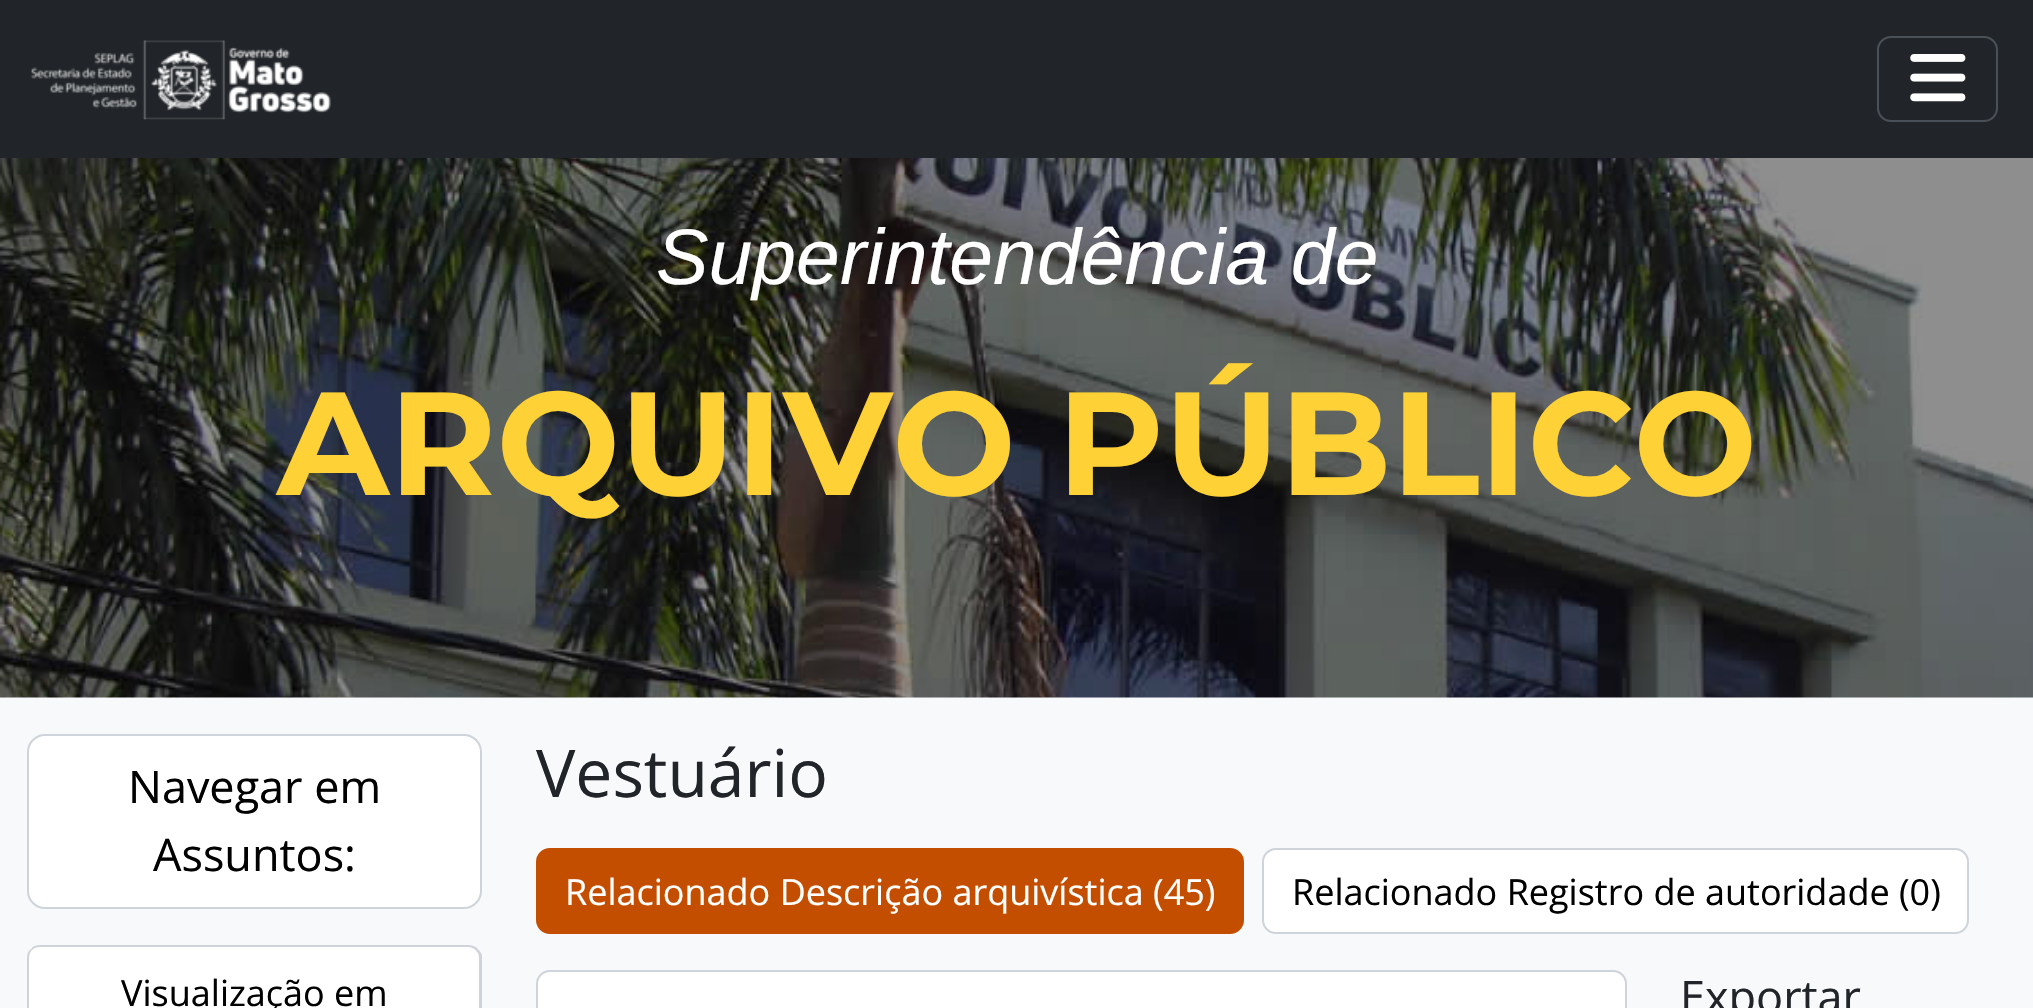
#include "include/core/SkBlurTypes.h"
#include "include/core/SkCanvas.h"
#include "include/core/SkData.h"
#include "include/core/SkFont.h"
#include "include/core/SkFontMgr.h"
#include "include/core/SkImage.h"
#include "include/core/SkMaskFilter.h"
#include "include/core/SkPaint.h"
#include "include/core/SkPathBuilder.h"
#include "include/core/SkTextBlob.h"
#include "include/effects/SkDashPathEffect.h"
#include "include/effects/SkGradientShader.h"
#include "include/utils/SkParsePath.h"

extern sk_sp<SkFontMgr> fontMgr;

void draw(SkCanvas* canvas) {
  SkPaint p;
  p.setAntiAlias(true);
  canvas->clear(SkColorSetRGB(248, 249, 250));
  p.setColor(SkColorSetRGB(33, 37, 41));
  canvas->drawRect(SkRect::MakeLTRB(0, 0, 2033, 158), p);
  canvas->drawImageRect(SkImages::DeferredFromEncodedData(SkData::MakeFromFileName("images/1.png")), SkRect::MakeLTRB(30, 40, 331, 120), SkSamplingOptions());
  p.setStyle(SkPaint::kStroke_Style);
  p.setStrokeWidth(2);
  p.setColor(SkColorSetRGB(73, 80, 87));
  canvas->drawRoundRect(SkRect::MakeLTRB(1878, 37, 1997, 121), 13, 13, p);
  canvas->drawImageRect(SkImages::DeferredFromEncodedData(SkData::MakeFromFileName("images/2.png")), SkRect::MakeLTRB(1910, 54, 1966, 102), SkSamplingOptions());
  canvas->drawImageRect(SkImages::DeferredFromEncodedData(SkData::MakeFromFileName("images/3.png")), SkRect::MakeLTRB(0, 158, 2033, 698), SkSamplingOptions());
  p.setStyle(SkPaint::kFill_Style);
  p.setColor(SK_ColorWHITE);
  canvas->drawRoundRect(SkRect::MakeLTRB(28, 735, 481, 908), 17, 17, p);
  p.setStyle(SkPaint::kStroke_Style);
  p.setColor(SkColorSetRGB(206, 212, 218));
  canvas->drawRoundRect(SkRect::MakeLTRB(28, 735, 481, 908), 17, 17, p);
  p.setStyle(SkPaint::kFill_Style);
  p.setColor(SK_ColorWHITE);
  canvas->drawPath(SkPathBuilder().moveTo(41, 945).lineTo(468, 945).cubicTo(475.5f, 945, 482, 951.5f, 482, 959).lineTo(482, 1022).lineTo(27, 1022).lineTo(27, 959).cubicTo(27, 951.5f, 33.5f, 945, 41, 945).close().detach(), p);
  p.setColor(SkColorSetRGB(206, 212, 218));
  canvas->drawPath(SkPathBuilder().moveTo(40, 945).cubicTo(36, 945, 33, 946, 31, 949).lineTo(32, 950).cubicTo(34, 948, 37, 947, 40, 947).lineTo(468, 947).cubicTo(471, 947, 474, 948, 476, 951).lineTo(478, 949).cubicTo(475, 946, 472, 945, 468, 945).close().detach(), p);
  canvas->drawPath(SkPathBuilder().moveTo(478, 949).cubicTo(479, 950, 481, 953, 482, 955).lineTo(482, 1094).lineTo(479, 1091).lineTo(479, 958).cubicTo(479, 955, 478, 952, 476, 951).close().detach(), p);
  canvas->drawPath(SkPathBuilder().moveTo(27, 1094).lineTo(30, 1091).lineTo(29, 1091).lineTo(29, 958).cubicTo(29, 955, 30, 952, 32, 950).lineTo(31, 949).cubicTo(28, 951, 27, 954, 27, 958).close().detach(), p);
  p.setColor(SkColorSetRGB(196, 78, 0));
  canvas->drawRoundRect(SkRect::MakeLTRB(537, 849, 1243, 933), 13, 13, p);
  p.setStyle(SkPaint::kStroke_Style);
  canvas->drawRoundRect(SkRect::MakeLTRB(537, 849, 1243, 933), 13, 13, p);
  p.setStyle(SkPaint::kFill_Style);
  p.setColor(SK_ColorWHITE);
  canvas->drawRoundRect(SkRect::MakeLTRB(1263, 849, 1968, 933), 13, 13, p);
  p.setStyle(SkPaint::kStroke_Style);
  p.setColor(SkColorSetRGB(206, 212, 218));
  canvas->drawRoundRect(SkRect::MakeLTRB(1263, 849, 1968, 933), 13, 13, p);
  p.setStyle(SkPaint::kFill_Style);
  p.setColor(SK_ColorWHITE);
  canvas->drawRoundRect(SkRect::MakeLTRB(537, 971, 1626, 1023), 13, 13, p);
  p.setStyle(SkPaint::kStroke_Style);
  p.setColor(SkColorSetRGB(206, 212, 218));
  canvas->drawRoundRect(SkRect::MakeLTRB(537, 971, 1626, 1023), 13, 13, p);
  SkFont font1(fontMgr->matchFamilyStyle("Liberation Sans", SkFontStyle::Italic()), 78.75f);
  font1.setSubpixel(true);
  p.setStyle(SkPaint::kFill_Style);
  p.setColor(SK_ColorWHITE);
  canvas->drawString("Superintendência de", 656, 284, font1, p);
  SkFont font2(fontMgr->matchFamilyStyle("Montserrat", SkFontStyle::Bold()), 146.25f);
  font2.setSubpixel(true);
  p.setColor(SkColorSetRGB(254, 209, 54));
  canvas->drawString("ARQUIVO PÚBLICO", 277, 495, font2, p);
  SkFont font3(fontMgr->matchFamilyStyle("Open Sans", SkFontStyle::Normal()), 45);
  font3.setSubpixel(true);
  p.setColor(SK_ColorBLACK);
  canvas->drawString("Navegar em", 128, 803, font3, p);
  canvas->drawString("Assuntos:", 153, 871, font3, p);
  SkFont font4(fontMgr->matchFamilyStyle("Open Sans", SkFontStyle::Normal()), 36);
  font4.setSubpixel(true);
  canvas->drawString("Visualização em", 121, 1006, font4, p);
  SkFont font5(fontMgr->matchFamilyStyle("Open Sans", SkFontStyle::Normal()), 66);
  font5.setSubpixel(true);
  p.setColor(SkColorSetRGB(33, 37, 41));
  canvas->drawString("Vestuário", 536, 797, font5, p);
  p.setColor(SK_ColorWHITE);
  canvas->drawString("Relacionado Descrição arquivística (45)", 565, 905, font4, p);
  p.setColor(SK_ColorBLACK);
  canvas->drawString("Relacionado Registro de autoridade (0)", 1292, 905, font4, p);
  p.setColor(SkColorSetRGB(33, 37, 41));
  canvas->drawString("Exportar", 1680, 1013, font3, p);
}
